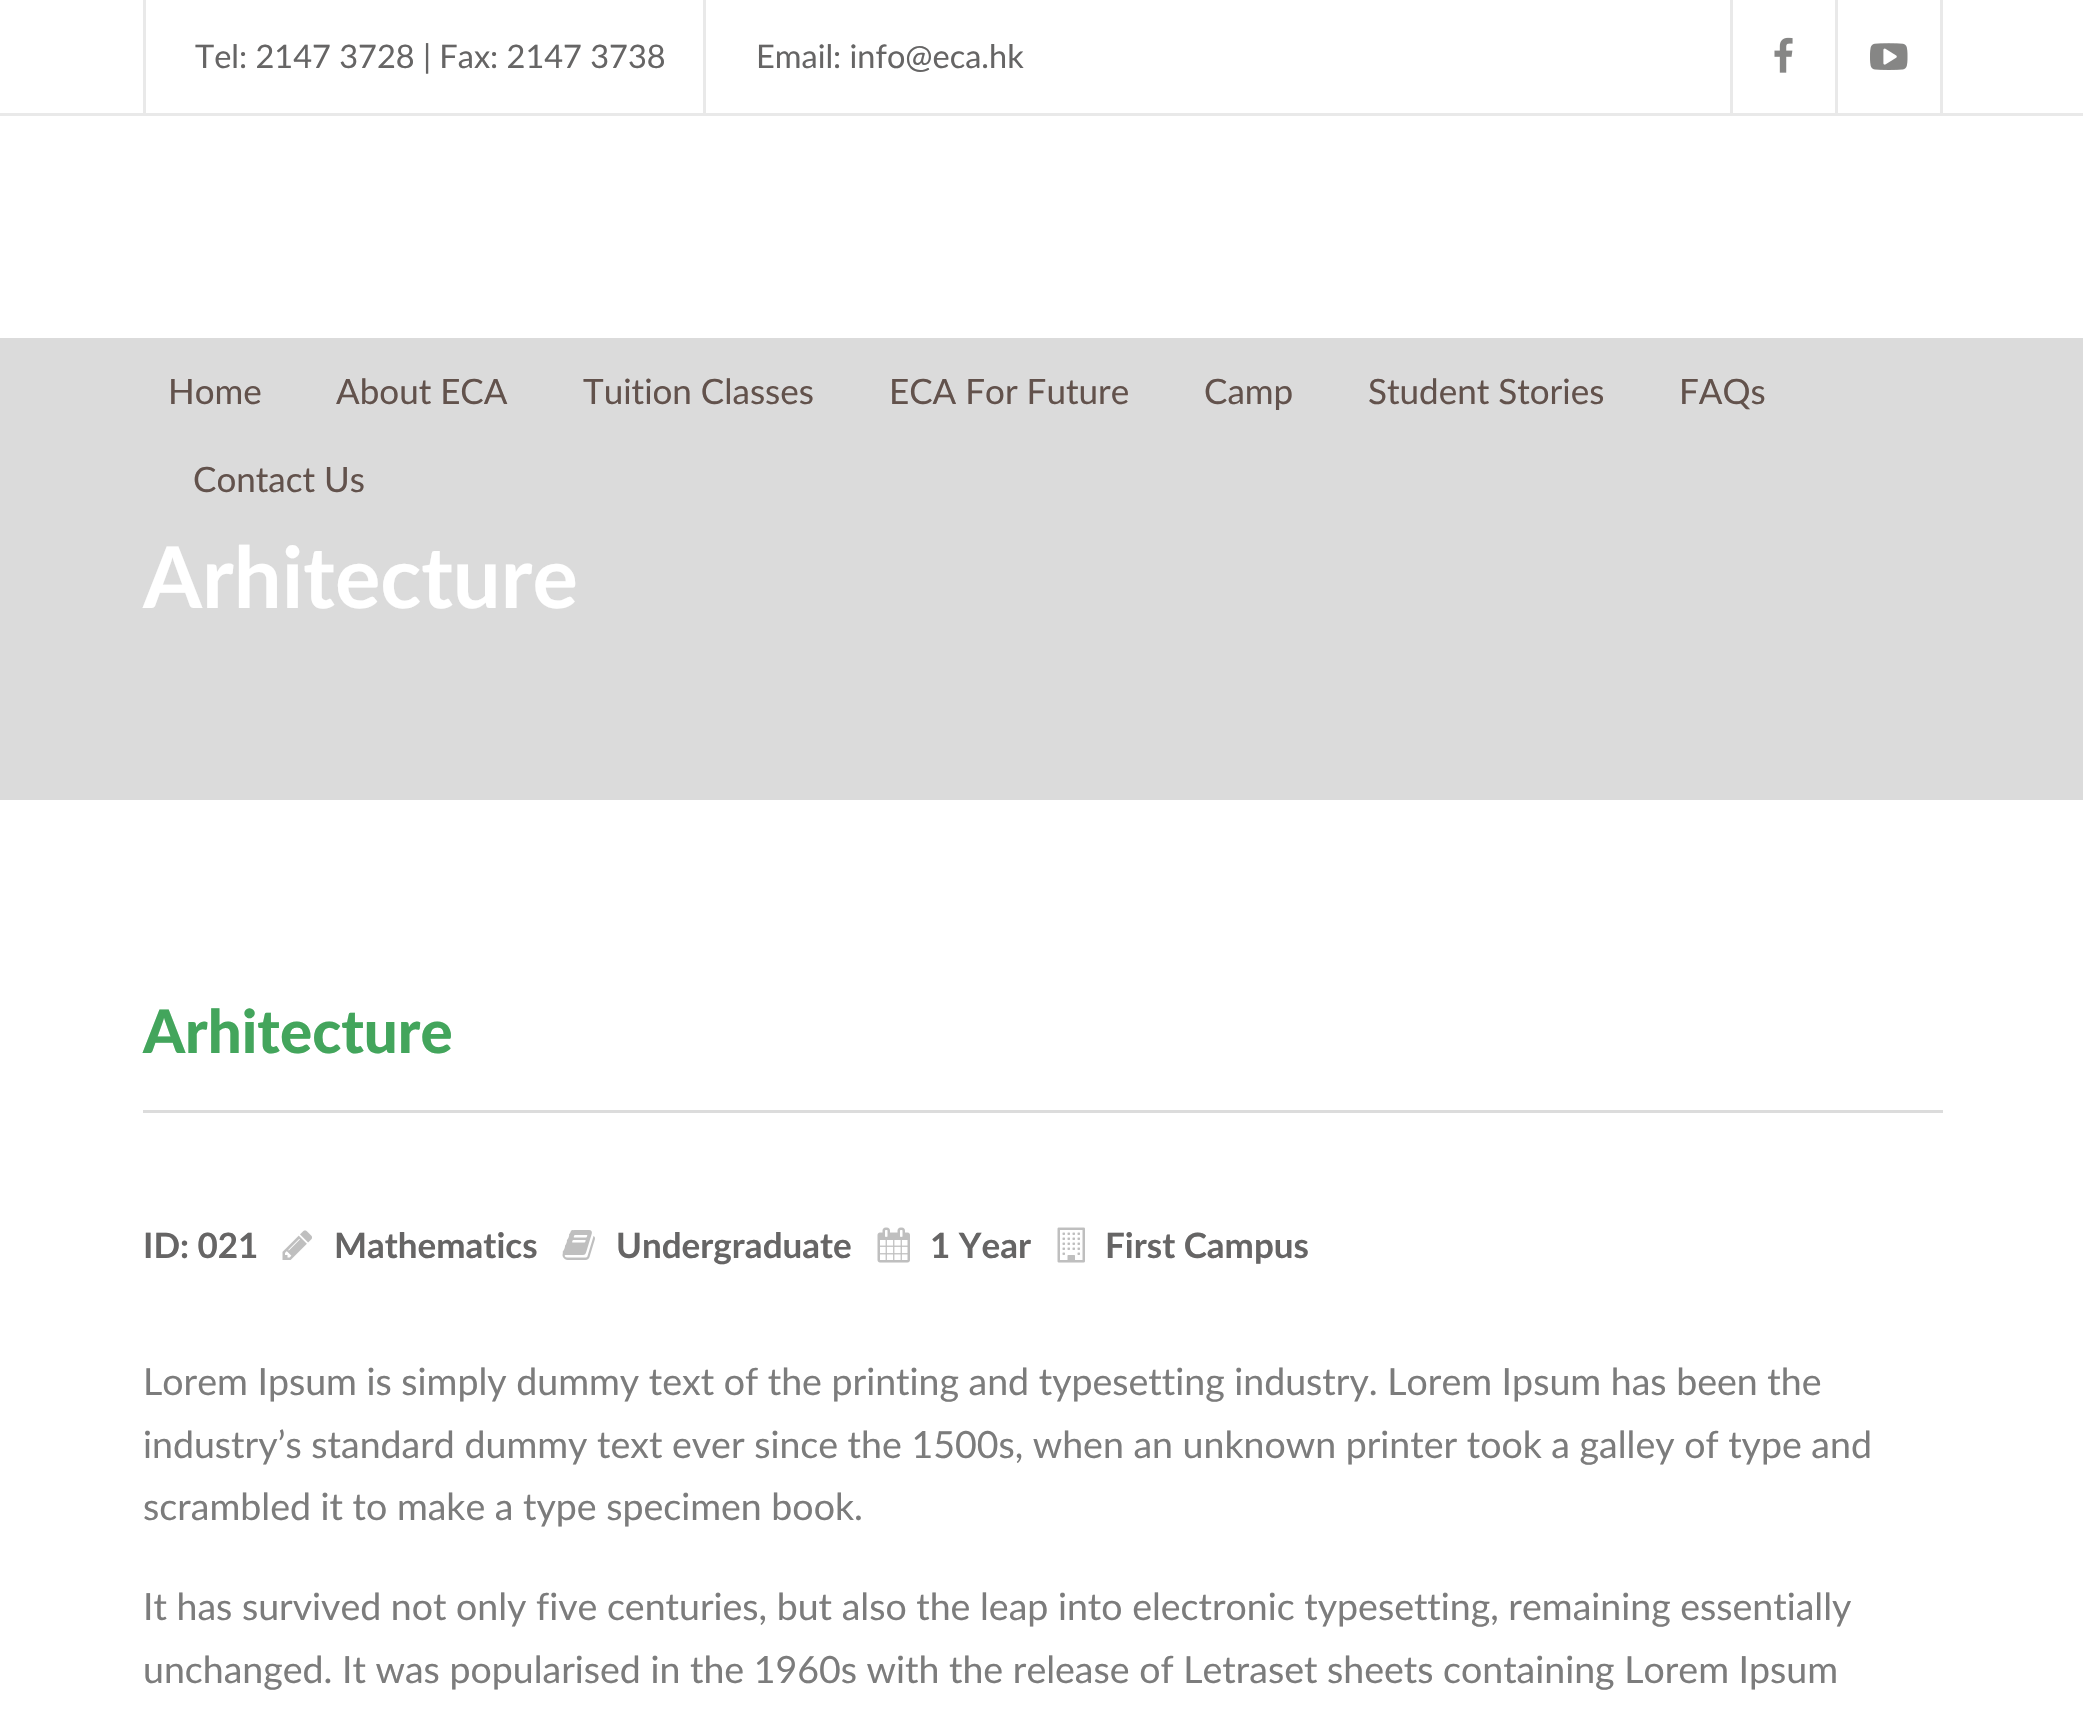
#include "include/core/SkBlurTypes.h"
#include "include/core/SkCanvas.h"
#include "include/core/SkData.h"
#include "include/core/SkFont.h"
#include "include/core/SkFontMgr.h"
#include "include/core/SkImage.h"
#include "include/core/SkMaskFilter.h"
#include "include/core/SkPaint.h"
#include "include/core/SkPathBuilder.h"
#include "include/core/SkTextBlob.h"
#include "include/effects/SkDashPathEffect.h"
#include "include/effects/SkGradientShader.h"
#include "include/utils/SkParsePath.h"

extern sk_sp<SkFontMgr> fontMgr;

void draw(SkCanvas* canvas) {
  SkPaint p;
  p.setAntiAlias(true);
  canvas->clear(SK_ColorWHITE);
  p.setColor(SkColorSetRGB(233, 233, 233));
  canvas->drawRect(SkRect::MakeLTRB(0, 113, 2083, 116), p);
  canvas->drawRect(SkRect::MakeLTRB(143, 0, 146, 113), p);
  canvas->drawRect(SkRect::MakeLTRB(703, 0, 706, 113), p);
  canvas->drawRect(SkRect::MakeLTRB(1730, 0, 1733, 113), p);
  canvas->drawRect(SkRect::MakeLTRB(1835, 0, 1838, 113), p);
  canvas->drawImageRect(SkImages::DeferredFromEncodedData(SkData::MakeFromFileName("images/1.png")), SkRect::MakeLTRB(1774, 37, 1793, 73), SkSamplingOptions());
  canvas->drawRect(SkRect::MakeLTRB(1940, 0, 1943, 113), p);
  canvas->drawImageRect(SkImages::DeferredFromEncodedData(SkData::MakeFromFileName("images/2.png")), SkRect::MakeLTRB(1870, 43, 1908, 70), SkSamplingOptions());
  p.setColor(SkColorSetRGB(219, 219, 219));
  canvas->drawRect(SkRect::MakeLTRB(0, 338, 2083, 800), p);
  p.setColor(SkColorSetRGB(220, 220, 220));
  canvas->drawRect(SkRect::MakeLTRB(143, 1110, 1943, 1113), p);
  canvas->drawImageRect(SkImages::DeferredFromEncodedData(SkData::MakeFromFileName("images/3.png")), SkRect::MakeLTRB(282, 1230, 312, 1260), SkSamplingOptions());
  canvas->drawImageRect(SkImages::DeferredFromEncodedData(SkData::MakeFromFileName("images/4.png")), SkRect::MakeLTRB(562, 1230, 595, 1260), SkSamplingOptions());
  canvas->drawImageRect(SkImages::DeferredFromEncodedData(SkData::MakeFromFileName("images/5.png")), SkRect::MakeLTRB(877, 1227, 910, 1263), SkSamplingOptions());
  canvas->drawImageRect(SkImages::DeferredFromEncodedData(SkData::MakeFromFileName("images/6.png")), SkRect::MakeLTRB(1057, 1227, 1085, 1263), SkSamplingOptions());
  SkFont font1(fontMgr->matchFamilyStyle("Lato", SkFontStyle::Normal()), 32.5f);
  font1.setSubpixel(true);
  p.setColor(SkColorSetRGB(102, 101, 101));
  canvas->drawString("Tel: 2147 3728 | Fax: 2147 3738", 195, 68, font1, p);
  canvas->drawString("Email: info@eca.hk", 756, 68, font1, p);
  SkFont font2(fontMgr->matchFamilyStyle("Lato", SkFontStyle::Normal()), 35);
  font2.setSubpixel(true);
  p.setColor(SkColorSetRGB(98, 82, 76));
  canvas->drawString("Home", 168, 404, font2, p);
  canvas->drawString("About ECA", 336, 404, font2, p);
  canvas->drawString("Tuition Classes", 583, 404, font2, p);
  canvas->drawString("ECA For Future", 889, 404, font2, p);
  canvas->drawString("Camp", 1204, 404, font2, p);
  canvas->drawString("Student Stories", 1368, 404, font2, p);
  canvas->drawString("FAQs", 1679, 404, font2, p);
  canvas->drawString("Contact Us", 193, 492, font2, p);
  SkFont font3(fontMgr->matchFamilyStyle("Lato", SkFontStyle::Bold()), 85);
  font3.setSubpixel(true);
  p.setColor(SK_ColorWHITE);
  canvas->drawString("Arhitecture", 143, 608, font3, p);
  SkFont font4(fontMgr->matchFamilyStyle("Lato", SkFontStyle(900, SkFontStyle::kNormal_Width, SkFontStyle::kUpright_Slant)), 60);
  font4.setSubpixel(true);
  p.setColor(SkColorSetRGB(67, 165, 92));
  canvas->drawString("Arhitecture", 143, 1053, font4, p);
  SkFont font5(fontMgr->matchFamilyStyle("Lato", SkFontStyle::Bold()), 35);
  font5.setSubpixel(true);
  p.setColor(SkColorSetRGB(102, 101, 101));
  canvas->drawString("ID: 021", 143, 1258, font5, p);
  canvas->drawString("Mathematics", 334, 1258, font5, p);
  canvas->drawString("Undergraduate", 616, 1258, font5, p);
  canvas->drawString("1 Year", 930, 1258, font5, p);
  canvas->drawString("First Campus", 1105, 1258, font5, p);
  SkFont font6(fontMgr->matchFamilyStyle("Lato", SkFontStyle::Normal()), 37.5f);
  font6.setSubpixel(true);
  p.setColor(SkColorSetRGB(124, 124, 124));
  canvas->drawString("Lorem Ipsum is simply dummy text of the printing and typesetting industry. Lorem Ipsum has been the", 143, 1395, font6, p);
  canvas->drawString("industry’s standard dummy text ever since the 1500s, when an unknown printer took a galley of type and", 143, 1458, font6, p);
  canvas->drawString("scrambled it to make a type specimen book.", 143, 1520, font6, p);
  canvas->drawString("It has survived not only five centuries, but also the leap into electronic typesetting, remaining essentially", 143, 1620, font6, p);
  canvas->drawString("unchanged. It was popularised in the 1960s with the release of Letraset sheets containing Lorem Ipsum", 143, 1683, font6, p);
}
